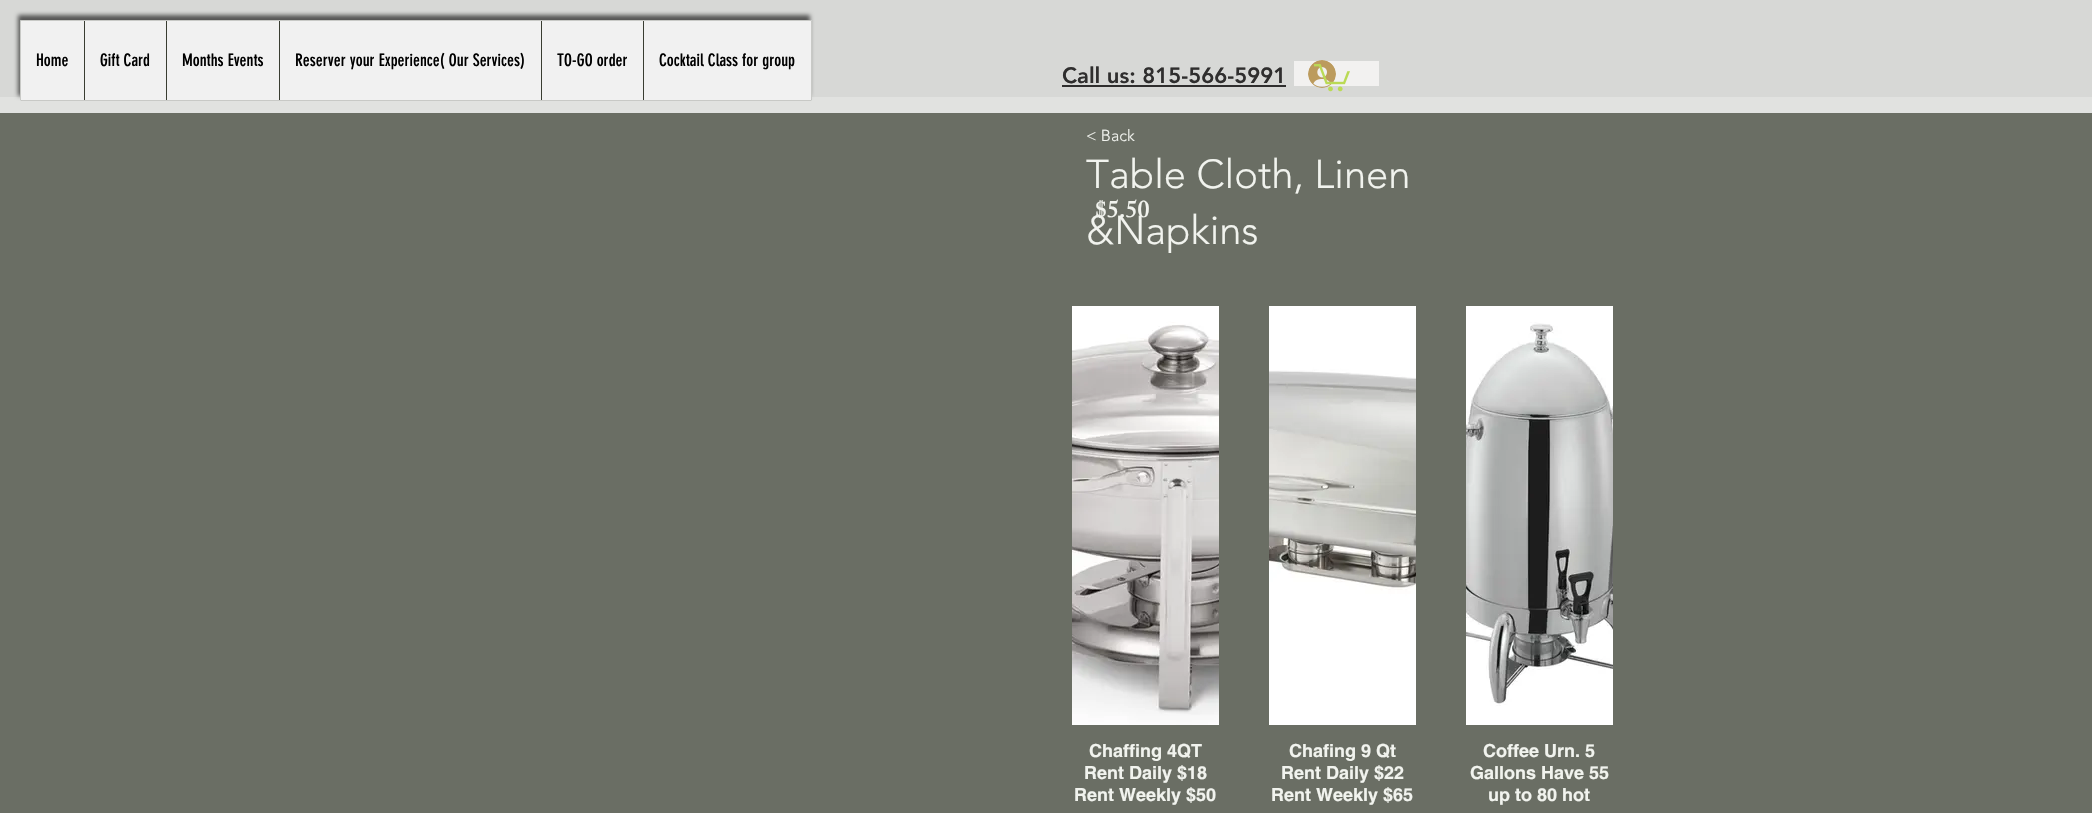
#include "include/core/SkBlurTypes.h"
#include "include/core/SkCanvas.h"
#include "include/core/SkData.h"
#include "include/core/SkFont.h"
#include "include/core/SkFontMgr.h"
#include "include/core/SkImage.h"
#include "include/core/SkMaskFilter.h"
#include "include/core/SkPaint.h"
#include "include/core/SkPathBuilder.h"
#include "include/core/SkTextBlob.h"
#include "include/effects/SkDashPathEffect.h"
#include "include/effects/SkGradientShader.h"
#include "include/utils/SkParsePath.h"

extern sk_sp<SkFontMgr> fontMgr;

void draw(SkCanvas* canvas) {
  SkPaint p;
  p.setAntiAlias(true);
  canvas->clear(SkColorSetRGB(215, 216, 214));
  p.setColor(SkColorSetRGB(225, 226, 224));
  canvas->drawRect(SkRect::MakeLTRB(0, 97, 2092, 113), p);
  p.setColor(SkColorSetARGB(153, 0, 0, 0));
  p.setMaskFilter(SkMaskFilter::MakeBlur(kNormal_SkBlurStyle, 2));
  canvas->drawRoundRect(SkRect::MakeLTRB(18, 15, 810, 96), 1, 1, p);
  p.setMaskFilter(nullptr);
  p.setColor(SkColorSetRGB(241, 241, 241));
  canvas->drawRoundRect(SkRect::MakeLTRB(20, 20, 812, 101), 1, 1, p);
  p.setStyle(SkPaint::kStroke_Style);
  p.setStrokeWidth(1);
  p.setColor(SkColorSetARGB(77, 106, 110, 100));
  canvas->drawRoundRect(SkRect::MakeLTRB(20.5f, 20.5f, 811.5f, 100.5f), 0.5f, 0.5f, p);
  p.setStyle(SkPaint::kFill_Style);
  p.setColor(SkColorSetRGB(57, 61, 50));
  canvas->drawRect(SkRect::MakeLTRB(84, 21, 85, 100), p);
  canvas->drawRect(SkRect::MakeLTRB(166, 21, 167, 100), p);
  canvas->drawRect(SkRect::MakeLTRB(279, 21, 280, 100), p);
  canvas->drawRect(SkRect::MakeLTRB(541, 21, 542, 100), p);
  canvas->drawRect(SkRect::MakeLTRB(643, 21, 644, 100), p);
  p.setColor(SkColorSetRGB(242, 241, 240));
  canvas->drawRect(SkRect::MakeLTRB(1294, 61, 1379, 86), p);
  canvas->drawImageRect(SkImages::DeferredFromEncodedData(SkData::MakeFromFileName("images/1.png")), SkRect::MakeLTRB(1308, 60, 1336, 88), SkSamplingOptions());
  p.setColor(SkColorSetRGB(47, 46, 46));
  canvas->drawRect(SkRect::MakeLTRB(1062, 85, 1286, 87), p);
  canvas->drawImageRect(SkImages::DeferredFromEncodedData(SkData::MakeFromFileName("images/2.png")), SkRect::MakeLTRB(1314, 64, 1350, 92), SkSamplingOptions());
  p.setColor(SkColorSetRGB(106, 110, 100));
  canvas->drawRect(SkRect::MakeLTRB(0, 113, 2092, 813), p);
  canvas->drawImageRect(SkImages::DeferredFromEncodedData(SkData::MakeFromFileName("images/3.png")), SkRect::MakeLTRB(1072, 306, 1219, 725), SkSamplingOptions());
  canvas->drawImageRect(SkImages::DeferredFromEncodedData(SkData::MakeFromFileName("images/4.png")), SkRect::MakeLTRB(1269, 306, 1416, 725), SkSamplingOptions());
  canvas->drawImageRect(SkImages::DeferredFromEncodedData(SkData::MakeFromFileName("images/5.png")), SkRect::MakeLTRB(1466, 306, 1613, 725), SkSamplingOptions());
  SkFont font1(fontMgr->matchFamilyStyle("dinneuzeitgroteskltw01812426", SkFontStyle::Normal()), 17);
  font1.setSubpixel(true);
  p.setColor(SK_ColorBLACK);
  canvas->drawString("Home", 36, 66, font1, p);
  canvas->drawString("Gift Card", 100, 66, font1, p);
  canvas->drawString("Months Events", 182, 66, font1, p);
  canvas->drawString("Reserver your Experience( Our Services)", 295, 66, font1, p);
  canvas->drawString("TO-GO order", 557, 66, font1, p);
  canvas->drawString("Cocktail Class for group", 659, 66, font1, p);
  SkFont font2(fontMgr->matchFamilyStyle("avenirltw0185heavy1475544", SkFontStyle(900, SkFontStyle::kNormal_Width, SkFontStyle::kUpright_Slant)), 22);
  font2.setSubpixel(true);
  p.setColor(SkColorSetRGB(47, 46, 46));
  canvas->drawString("Call us: 815-566-5991", 1062, 83, font2, p);
  SkFont font3(fontMgr->matchFamilyStyle("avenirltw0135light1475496", SkFontStyle(300, SkFontStyle::kNormal_Width, SkFontStyle::kUpright_Slant)), 16);
  font3.setSubpixel(true);
  p.setColor(SkColorSetRGB(241, 243, 238));
  canvas->drawString("< Back", 1086, 141, font3, p);
  SkFont font4(fontMgr->matchFamilyStyle("avenirltw0135light1475496", SkFontStyle(300, SkFontStyle::kNormal_Width, SkFontStyle::kUpright_Slant)), 40);
  font4.setSubpixel(true);
  canvas->drawString("Table Cloth, Linen", 1086, 188, font4, p);
  canvas->drawString("&Napkins", 1086, 244, font4, p);
  SkFont font5(fontMgr->matchFamilyStyle("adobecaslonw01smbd", SkFontStyle(600, SkFontStyle::kNormal_Width, SkFontStyle::kUpright_Slant)), 24);
  font5.setSubpixel(true);
  canvas->drawString("$5.50", 1095, 217, font5, p);
  SkFont font6(fontMgr->matchFamilyStyle("helvetica", SkFontStyle::Bold()), 18);
  font6.setSubpixel(true);
  canvas->drawString("Chaffing 4QT", 1089, 757, font6, p);
  canvas->drawString("Rent Daily $18", 1084, 779, font6, p);
  canvas->drawString("Rent Weekly $50", 1074, 801, font6, p);
  canvas->drawString("Chafing 9 Qt", 1289, 757, font6, p);
  canvas->drawString("Rent Daily $22", 1281, 779, font6, p);
  canvas->drawString("Rent Weekly $65", 1271, 801, font6, p);
  canvas->drawString("Coffee Urn. 5", 1483, 757, font6, p);
  canvas->drawString("Gallons Have 55", 1470, 779, font6, p);
  canvas->drawString("up to 80 hot", 1488, 801, font6, p);
}
